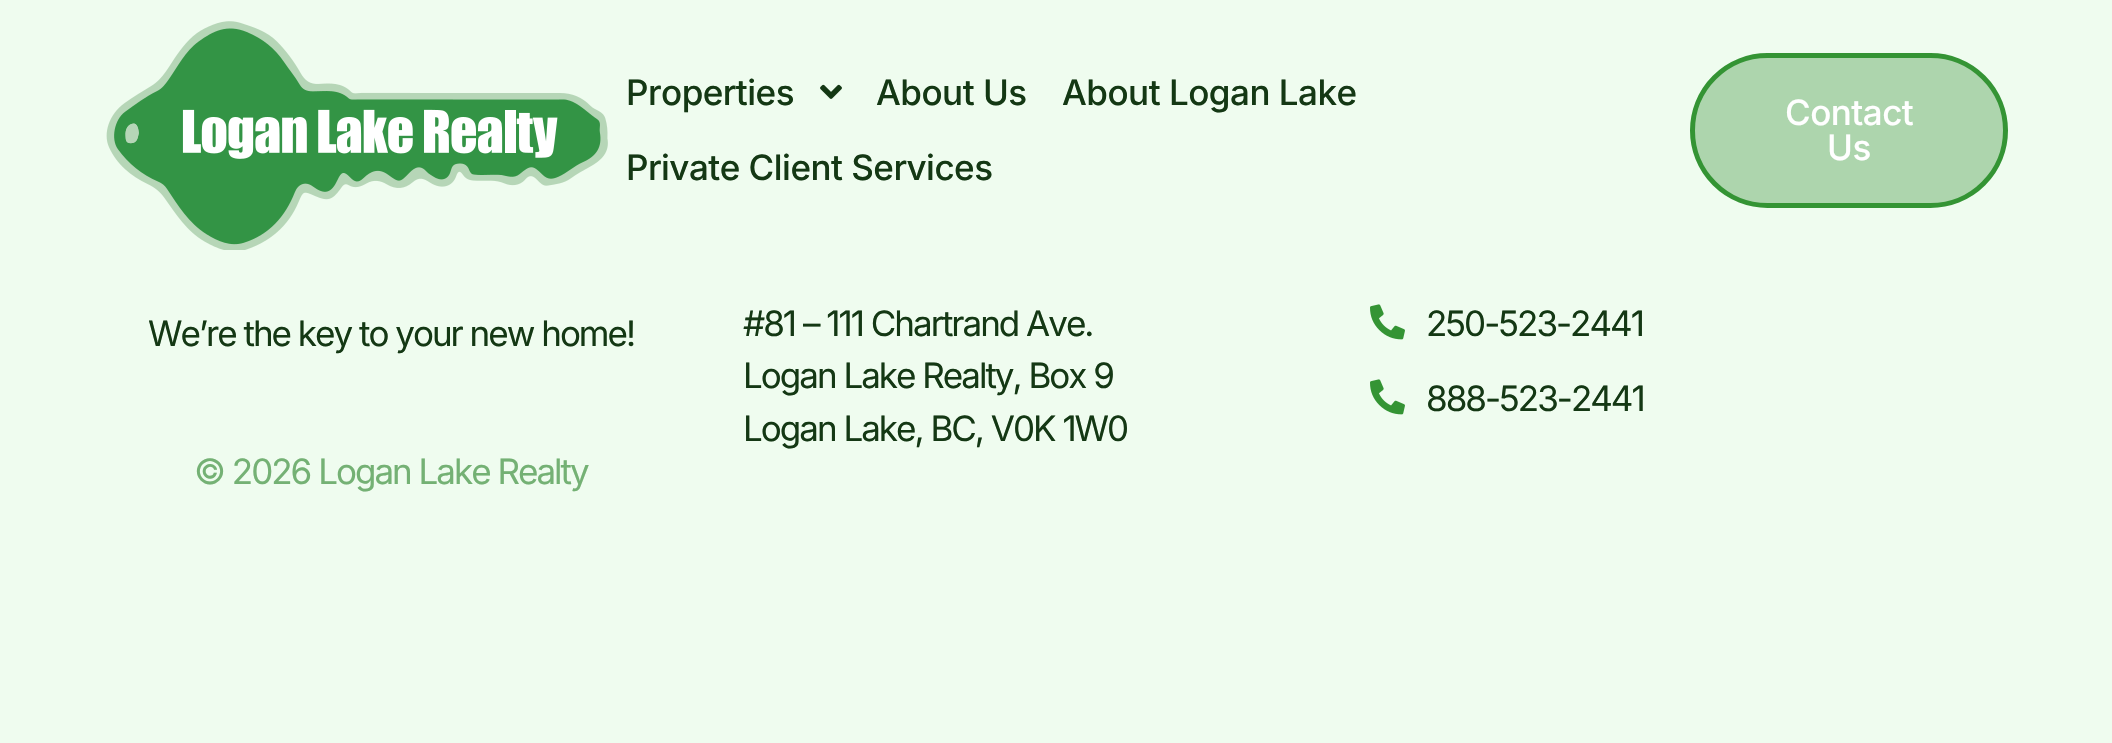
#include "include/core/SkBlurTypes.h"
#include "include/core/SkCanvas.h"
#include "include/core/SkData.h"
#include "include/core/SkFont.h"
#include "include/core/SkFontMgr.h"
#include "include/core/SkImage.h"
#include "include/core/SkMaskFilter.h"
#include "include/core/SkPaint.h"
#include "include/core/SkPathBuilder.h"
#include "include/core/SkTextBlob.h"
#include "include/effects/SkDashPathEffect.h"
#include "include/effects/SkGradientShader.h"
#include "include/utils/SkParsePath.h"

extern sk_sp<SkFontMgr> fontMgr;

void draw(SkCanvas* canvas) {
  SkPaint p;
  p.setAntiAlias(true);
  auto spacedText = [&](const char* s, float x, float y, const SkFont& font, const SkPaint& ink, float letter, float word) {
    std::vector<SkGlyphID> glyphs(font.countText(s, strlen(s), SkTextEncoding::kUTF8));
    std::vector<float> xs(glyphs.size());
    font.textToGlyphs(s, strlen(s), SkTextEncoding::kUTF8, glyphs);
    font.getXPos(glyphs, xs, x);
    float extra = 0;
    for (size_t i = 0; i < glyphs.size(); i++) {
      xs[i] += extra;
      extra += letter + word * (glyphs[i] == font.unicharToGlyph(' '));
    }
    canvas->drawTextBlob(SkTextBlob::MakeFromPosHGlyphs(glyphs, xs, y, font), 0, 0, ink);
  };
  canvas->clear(SkColorSetRGB(239, 252, 239));
  canvas->drawImageRect(SkImages::DeferredFromEncodedData(SkData::MakeFromFileName("images/1.png")), SkRect::MakeLTRB(106, 21, 608, 250), SkSamplingOptions());
  canvas->drawImageRect(SkImages::DeferredFromEncodedData(SkData::MakeFromFileName("images/2.png")), SkRect::MakeLTRB(820, 84, 842, 99), SkSamplingOptions());
  p.setColor(SkColorSetRGB(173, 213, 173));
  canvas->drawRoundRect(SkRect::MakeLTRB(1692.5f, 55.5f, 2005.5f, 205.5f), 75, 75, p);
  p.setStyle(SkPaint::kStroke_Style);
  p.setStrokeWidth(5);
  p.setColor(SkColorSetRGB(52, 148, 52));
  canvas->drawRoundRect(SkRect::MakeLTRB(1692.5f, 55.5f, 2005.5f, 205.5f), 75, 75, p);
  canvas->drawImageRect(SkImages::DeferredFromEncodedData(SkData::MakeFromFileName("images/3.png")), SkRect::MakeLTRB(1370, 304, 1405, 340), SkSamplingOptions());
  canvas->drawImageRect(SkImages::DeferredFromEncodedData(SkData::MakeFromFileName("images/3.png")), SkRect::MakeLTRB(1370, 379, 1405, 415), SkSamplingOptions());
  SkFont font1(fontMgr->matchFamilyStyle("Inter", SkFontStyle(500, SkFontStyle::kNormal_Width, SkFontStyle::kUpright_Slant)), 35);
  font1.setSubpixel(true);
  p.setStyle(SkPaint::kFill_Style);
  p.setColor(SkColorSetRGB(20, 56, 20));
  spacedText("Properties", 626, 105, font1, p, -0.5f, 0);
  spacedText("About Us", 876, 105, font1, p, -0.5f, 0);
  spacedText("About Logan Lake", 1062, 105, font1, p, -0.5f, 0);
  spacedText("Private Client Services", 626, 180, font1, p, -0.5f, 0);
  p.setColor(SK_ColorWHITE);
  spacedText("Contact", 1785, 125, font1, p, -0.5f, 0);
  spacedText("Us", 1827, 160, font1, p, -0.5f, 0);
  SkFont font2(fontMgr->matchFamilyStyle("Inter", SkFontStyle::Normal()), 35);
  font2.setSubpixel(true);
  p.setColor(SkColorSetRGB(20, 56, 20));
  spacedText("We’re the key to your new home!", 148, 346, font2, p, -2, 0);
  p.setColor(SkColorSetRGB(116, 177, 116));
  spacedText("© 2026 Logan Lake Realty", 194, 484, font2, p, -2, 0);
  p.setColor(SkColorSetRGB(20, 56, 20));
  spacedText("#81 – 111 Chartrand Ave.", 743, 336, font2, p, -2, 0);
  spacedText("Logan Lake Realty, Box 9", 743, 388, font2, p, -2, 0);
  spacedText("Logan Lake, BC, V0K 1W0", 743, 441, font2, p, -2, 0);
  spacedText("250-523-2441", 1426, 336, font2, p, -2, 0);
  spacedText("888-523-2441", 1426, 411, font2, p, -2, 0);
}
